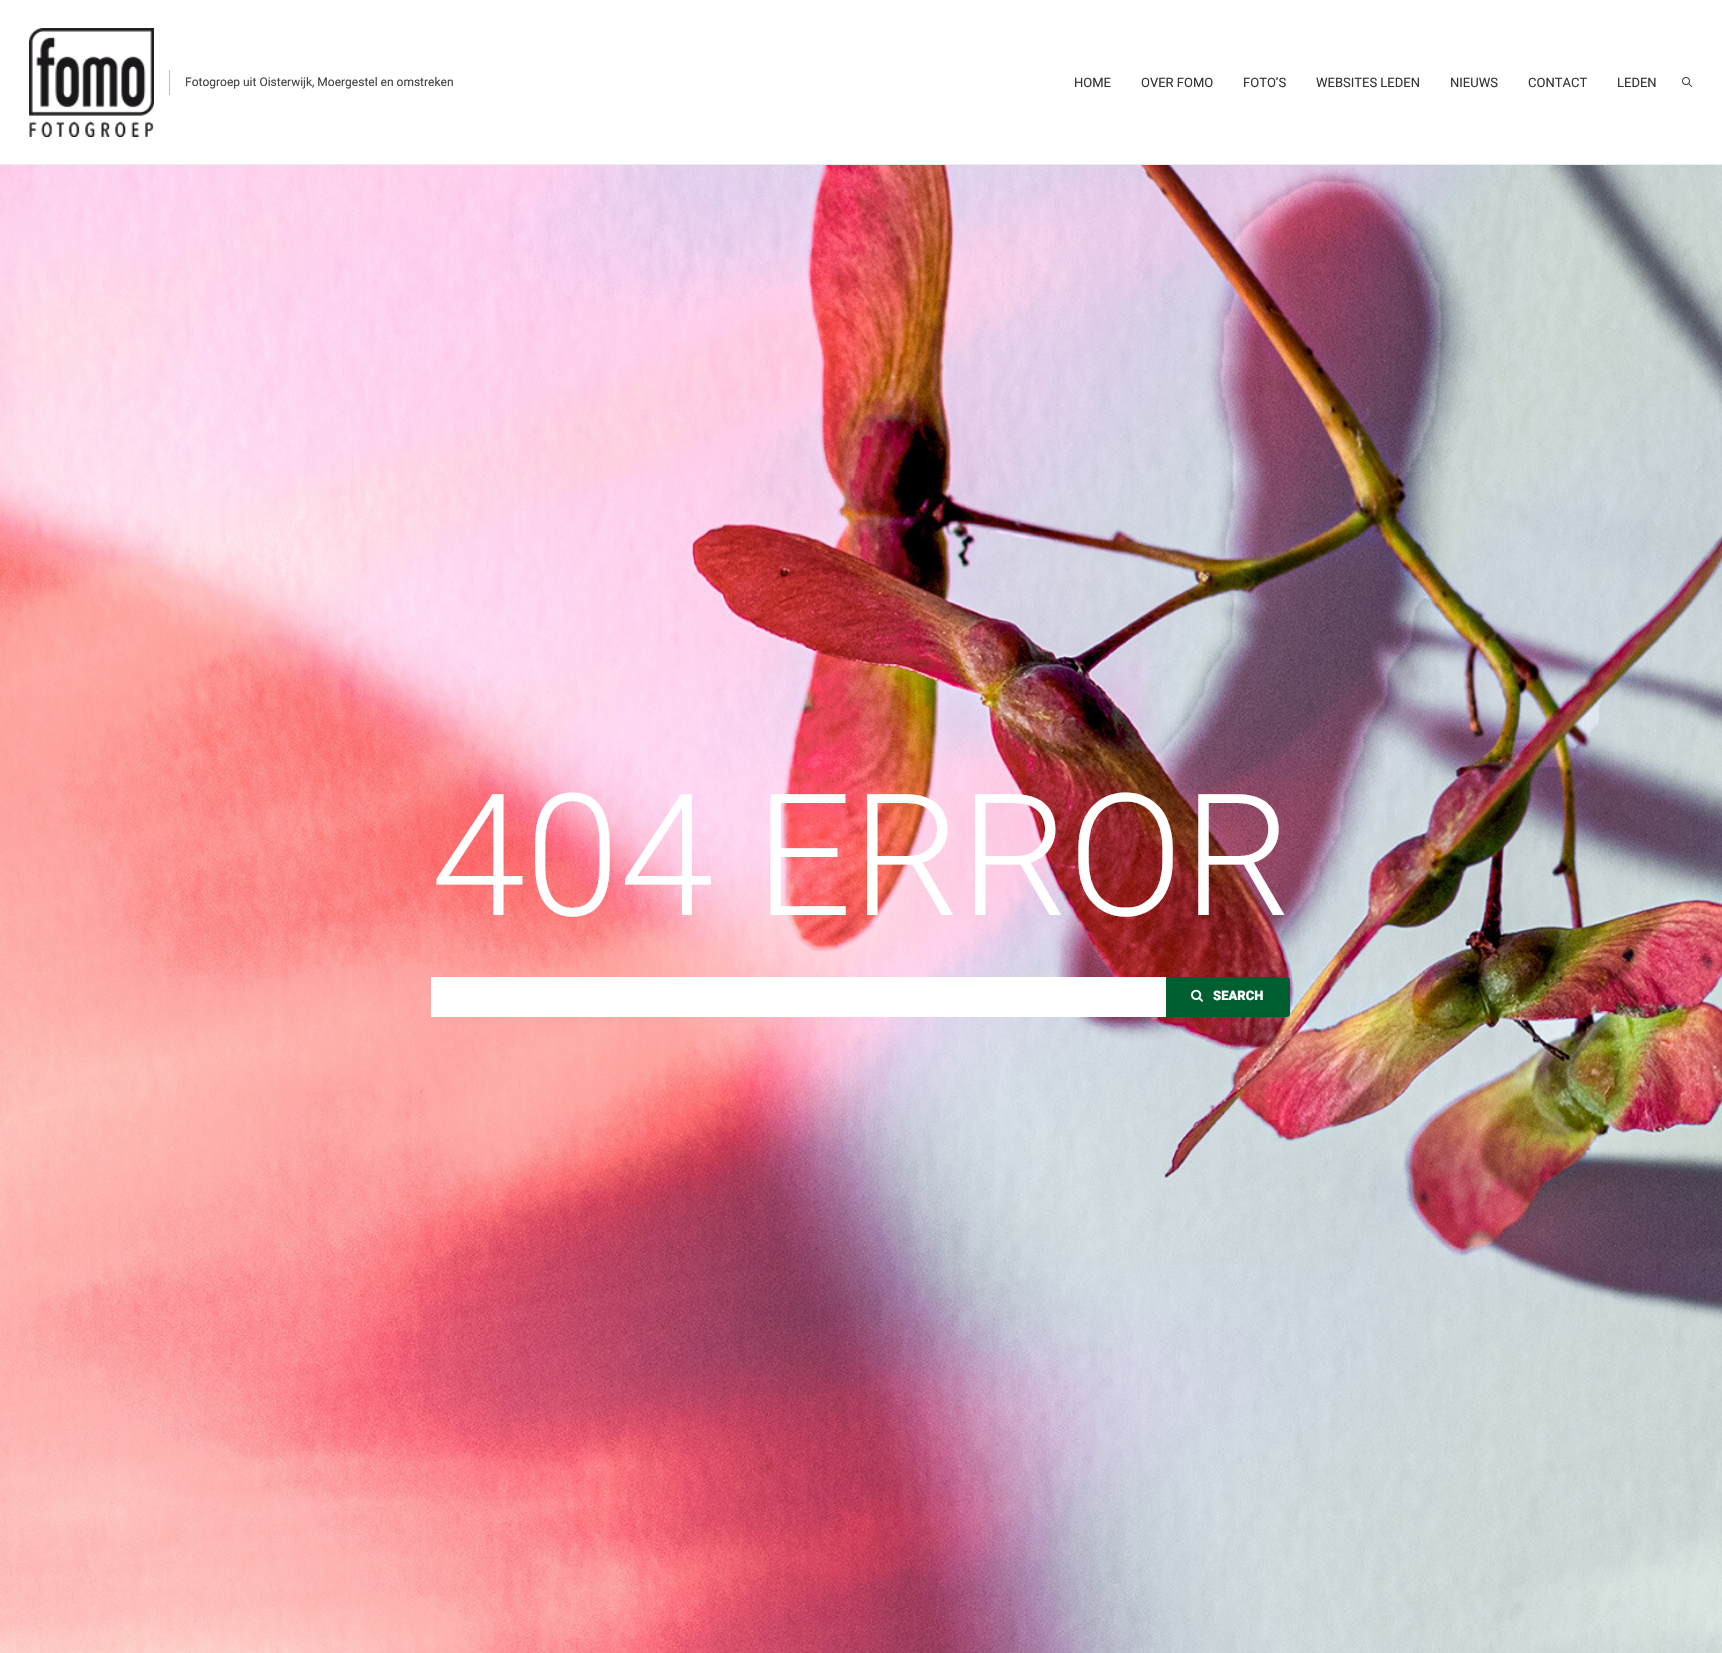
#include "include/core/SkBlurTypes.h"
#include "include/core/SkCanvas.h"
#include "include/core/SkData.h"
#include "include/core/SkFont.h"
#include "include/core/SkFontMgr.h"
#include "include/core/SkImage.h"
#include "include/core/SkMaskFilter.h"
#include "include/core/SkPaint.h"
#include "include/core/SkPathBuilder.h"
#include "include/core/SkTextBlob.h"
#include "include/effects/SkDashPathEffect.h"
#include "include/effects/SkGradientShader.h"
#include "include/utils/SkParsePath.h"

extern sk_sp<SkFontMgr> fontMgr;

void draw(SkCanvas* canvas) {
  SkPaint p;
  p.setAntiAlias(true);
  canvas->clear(SK_ColorWHITE);
  p.setColor(SkColorSetRGB(236, 236, 236));
  canvas->drawRect(SkRect::MakeLTRB(0, 164, 1722, 165), p);
  canvas->drawImageRect(SkImages::DeferredFromEncodedData(SkData::MakeFromFileName("images/1.png")), SkRect::MakeLTRB(29, 28, 154, 137), SkSamplingOptions());
  p.setColor(SkColorSetRGB(190, 190, 190));
  canvas->drawRect(SkRect::MakeLTRB(169, 70, 170, 95), p);
  canvas->drawImageRect(SkImages::DeferredFromEncodedData(SkData::MakeFromFileName("images/2.png")), SkRect::MakeLTRB(1682, 77, 1692, 87), SkSamplingOptions());
  canvas->drawImageRect(SkImages::DeferredFromEncodedData(SkData::MakeFromFileName("images/3.png")), SkRect::MakeLTRB(0, 165, 1722, 1653), SkSamplingOptions());
  p.setColor(SK_ColorWHITE);
  canvas->drawRect(SkRect::MakeLTRB(431, 977, 1166, 1017), p);
  p.setColor(SkColorSetRGB(0, 95, 49));
  canvas->drawPath(SkPathBuilder().moveTo(1166, 977).lineTo(1287, 977).cubicTo(1288.5f, 977, 1290, 978.5f, 1290, 980).lineTo(1290, 1014).cubicTo(1290, 1015.5f, 1288.5f, 1017, 1287, 1017).lineTo(1166, 1017).close().detach(), p);
  canvas->drawImageRect(SkImages::DeferredFromEncodedData(SkData::MakeFromFileName("images/4.png")), SkRect::MakeLTRB(1191, 989, 1203, 1002), SkSamplingOptions());
  SkFont font1(fontMgr->matchFamilyStyle("Roboto", SkFontStyle::Normal()), 12);
  font1.setSubpixel(true);
  p.setColor(SkColorSetRGB(67, 67, 67));
  canvas->drawString("Fotogroep uit Oisterwijk, Moergestel en omstreken", 185, 86, font1, p);
  SkFont font2(fontMgr->matchFamilyStyle("Roboto", SkFontStyle::Normal()), 13);
  font2.setSubpixel(true);
  p.setColor(SkColorSetRGB(52, 52, 52));
  canvas->drawString("HOME", 1074, 87, font2, p);
  canvas->drawString("OVER FOMO", 1141, 87, font2, p);
  canvas->drawString("FOTO’S", 1243, 87, font2, p);
  canvas->drawString("WEBSITES LEDEN", 1316, 87, font2, p);
  canvas->drawString("NIEUWS", 1450, 87, font2, p);
  canvas->drawString("CONTACT", 1528, 87, font2, p);
  canvas->drawString("LEDEN", 1617, 87, font2, p);
  SkFont font3(fontMgr->matchFamilyStyle("Roboto", SkFontStyle(300, SkFontStyle::kNormal_Width, SkFontStyle::kUpright_Slant)), 170);
  font3.setSubpixel(true);
  p.setColor(SK_ColorWHITE);
  canvas->drawString("404 ERROR", 431, 915, font3, p);
  SkFont font4(fontMgr->matchFamilyStyle("Roboto", SkFontStyle(900, SkFontStyle::kNormal_Width, SkFontStyle::kUpright_Slant)), 13);
  font4.setSubpixel(true);
  canvas->drawString("SEARCH", 1213, 1000, font4, p);
}
